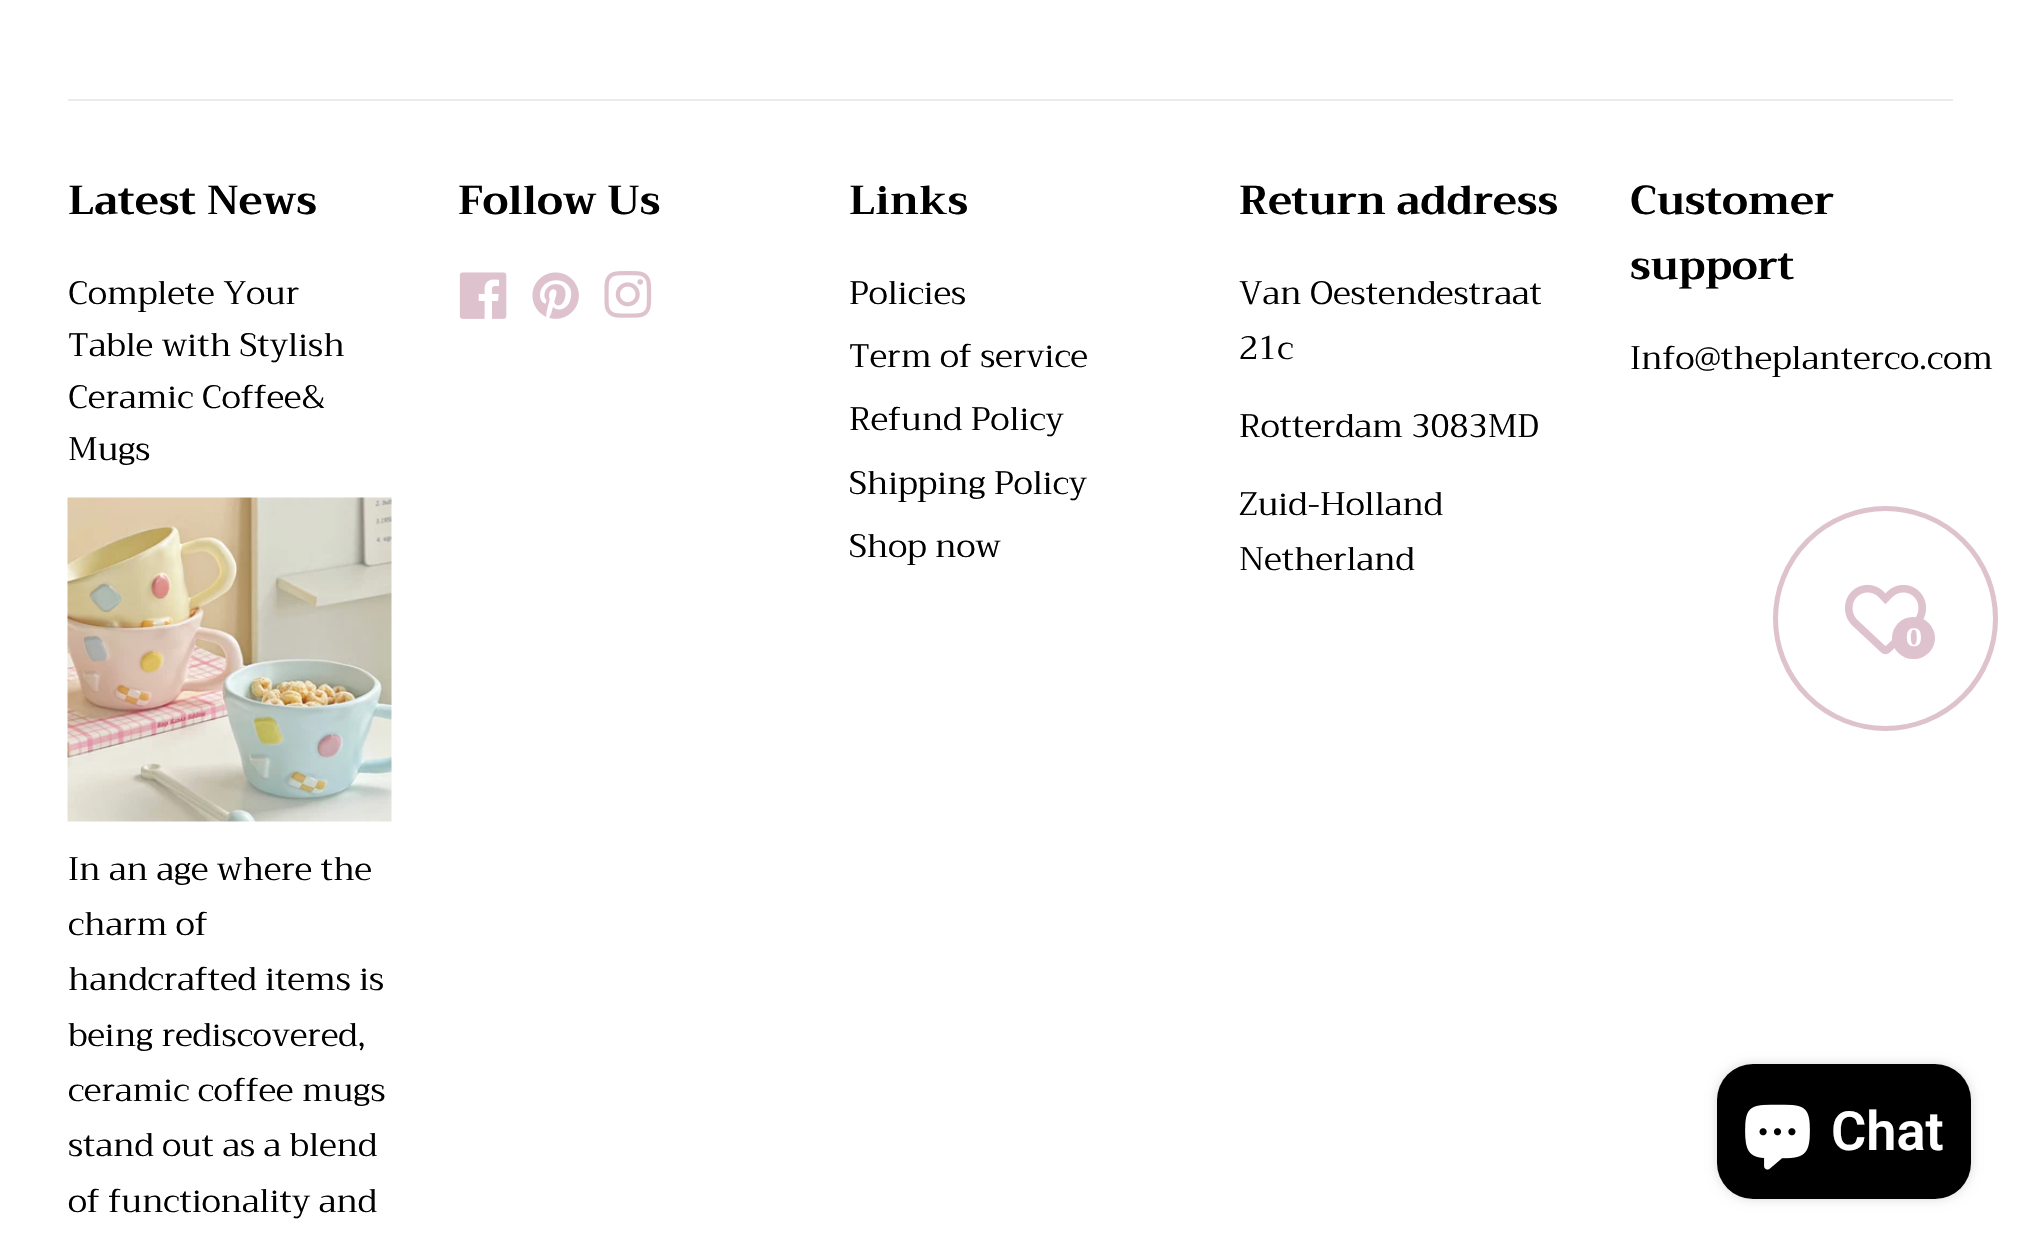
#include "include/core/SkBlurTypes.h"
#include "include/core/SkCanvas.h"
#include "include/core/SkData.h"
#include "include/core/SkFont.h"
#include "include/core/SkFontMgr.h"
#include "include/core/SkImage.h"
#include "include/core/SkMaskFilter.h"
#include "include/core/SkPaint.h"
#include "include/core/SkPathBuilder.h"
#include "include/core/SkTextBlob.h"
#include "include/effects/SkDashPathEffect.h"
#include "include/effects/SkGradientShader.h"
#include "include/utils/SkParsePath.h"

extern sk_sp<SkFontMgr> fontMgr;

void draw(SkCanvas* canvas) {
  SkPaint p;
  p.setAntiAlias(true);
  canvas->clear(SK_ColorWHITE);
  p.setColor(SkColorSetRGB(235, 235, 235));
  canvas->drawRect(SkRect::MakeLTRB(68, 99, 1953, 101), p);
  canvas->drawImageRect(SkImages::DeferredFromEncodedData(SkData::MakeFromFileName("images/1.png")), SkRect::MakeLTRB(67, 497, 392, 822), SkSamplingOptions());
  canvas->drawImageRect(SkImages::DeferredFromEncodedData(SkData::MakeFromFileName("images/2.png")), SkRect::MakeLTRB(459, 272, 507, 319), SkSamplingOptions());
  canvas->drawImageRect(SkImages::DeferredFromEncodedData(SkData::MakeFromFileName("images/3.png")), SkRect::MakeLTRB(532, 272, 579, 319), SkSamplingOptions());
  canvas->drawImageRect(SkImages::DeferredFromEncodedData(SkData::MakeFromFileName("images/4.png")), SkRect::MakeLTRB(604, 271, 652, 318), SkSamplingOptions());
  p.setStyle(SkPaint::kStroke_Style);
  p.setStrokeWidth(5);
  p.setColor(SkColorSetRGB(222, 194, 205));
  canvas->drawCircle(1885.5f, 618.5f, 110, p);
  canvas->drawImageRect(SkImages::DeferredFromEncodedData(SkData::MakeFromFileName("images/5.png")), SkRect::MakeLTRB(1845, 584, 1926, 655), SkSamplingOptions());
  p.setStyle(SkPaint::kFill_Style);
  canvas->drawRoundRect(SkRect::MakeLTRB(1892, 617, 1935, 659), 21, 21, p);
  p.setColor(SkColorSetARGB(38, 0, 0, 0));
  p.setMaskFilter(SkMaskFilter::MakeBlur(kNormal_SkBlurStyle, 5.5f));
  canvas->drawRoundRect(SkRect::MakeLTRB(1717, 1064, 1971, 1199), 36, 36, p);
  p.setMaskFilter(nullptr);
  p.setColor(SK_ColorBLACK);
  canvas->drawRoundRect(SkRect::MakeLTRB(1717, 1064, 1971, 1199), 36, 36, p);
  canvas->drawImageRect(SkImages::DeferredFromEncodedData(SkData::MakeFromFileName("images/6.png")), SkRect::MakeLTRB(1745, 1104, 1810, 1170), SkSamplingOptions());
  SkFont font1(fontMgr->matchFamilyStyle("Trirong", SkFontStyle::Bold()), 40.5f);
  font1.setSubpixel(true);
  canvas->drawString("Latest News", 68, 214, font1, p);
  SkFont font2(fontMgr->matchFamilyStyle("Trirong", SkFontStyle::Normal()), 32.5f);
  font2.setSubpixel(true);
  canvas->drawString("Complete Your", 68, 304, font2, p);
  canvas->drawString("Table with Stylish", 68, 356, font2, p);
  canvas->drawString("Ceramic Coffee&", 68, 408, font2, p);
  canvas->drawString("Mugs", 68, 460, font2, p);
  canvas->drawString("In an age where the", 68, 880, font2, p);
  canvas->drawString("charm of", 68, 935, font2, p);
  canvas->drawString("handcrafted items is", 68, 990, font2, p);
  canvas->drawString("being rediscovered,", 68, 1046, font2, p);
  canvas->drawString("ceramic coffee mugs", 68, 1101, font2, p);
  canvas->drawString("stand out as a blend", 68, 1156, font2, p);
  canvas->drawString("of functionality and", 68, 1212, font2, p);
  canvas->drawString("Follow Us", 458, 214, font1, p);
  canvas->drawString("Links", 849, 214, font1, p);
  canvas->drawString("Policies", 849, 304, font2, p);
  canvas->drawString("Term of service", 849, 367, font2, p);
  canvas->drawString("Refund Policy", 849, 430, font2, p);
  canvas->drawString("Shipping Policy", 849, 494, font2, p);
  canvas->drawString("Shop now", 849, 557, font2, p);
  canvas->drawString("Return address", 1239, 214, font1, p);
  canvas->drawString("Van Oestendestraat", 1239, 304, font2, p);
  canvas->drawString("21c", 1239, 359, font2, p);
  canvas->drawString("Rotterdam 3083MD", 1239, 437, font2, p);
  canvas->drawString("Zuid-Holland", 1239, 515, font2, p);
  canvas->drawString("Netherland", 1239, 570, font2, p);
  canvas->drawString("Customer", 1630, 214, font1, p);
  canvas->drawString("support", 1630, 279, font1, p);
  canvas->drawString("Info@theplanterco.com", 1630, 369, font2, p);
  SkFont font3(fontMgr->matchFamilyStyle("Trirong", SkFontStyle::Bold()), 25);
  font3.setSubpixel(true);
  p.setColor(SK_ColorWHITE);
  canvas->drawString("0", 1906, 646, font3, p);
  SkFont font4(fontMgr->matchFamilyStyle("Roboto", SkFontStyle(600, SkFontStyle::kNormal_Width, SkFontStyle::kUpright_Slant)), 54);
  font4.setSubpixel(true);
  canvas->drawString("Chat", 1831, 1150, font4, p);
}
